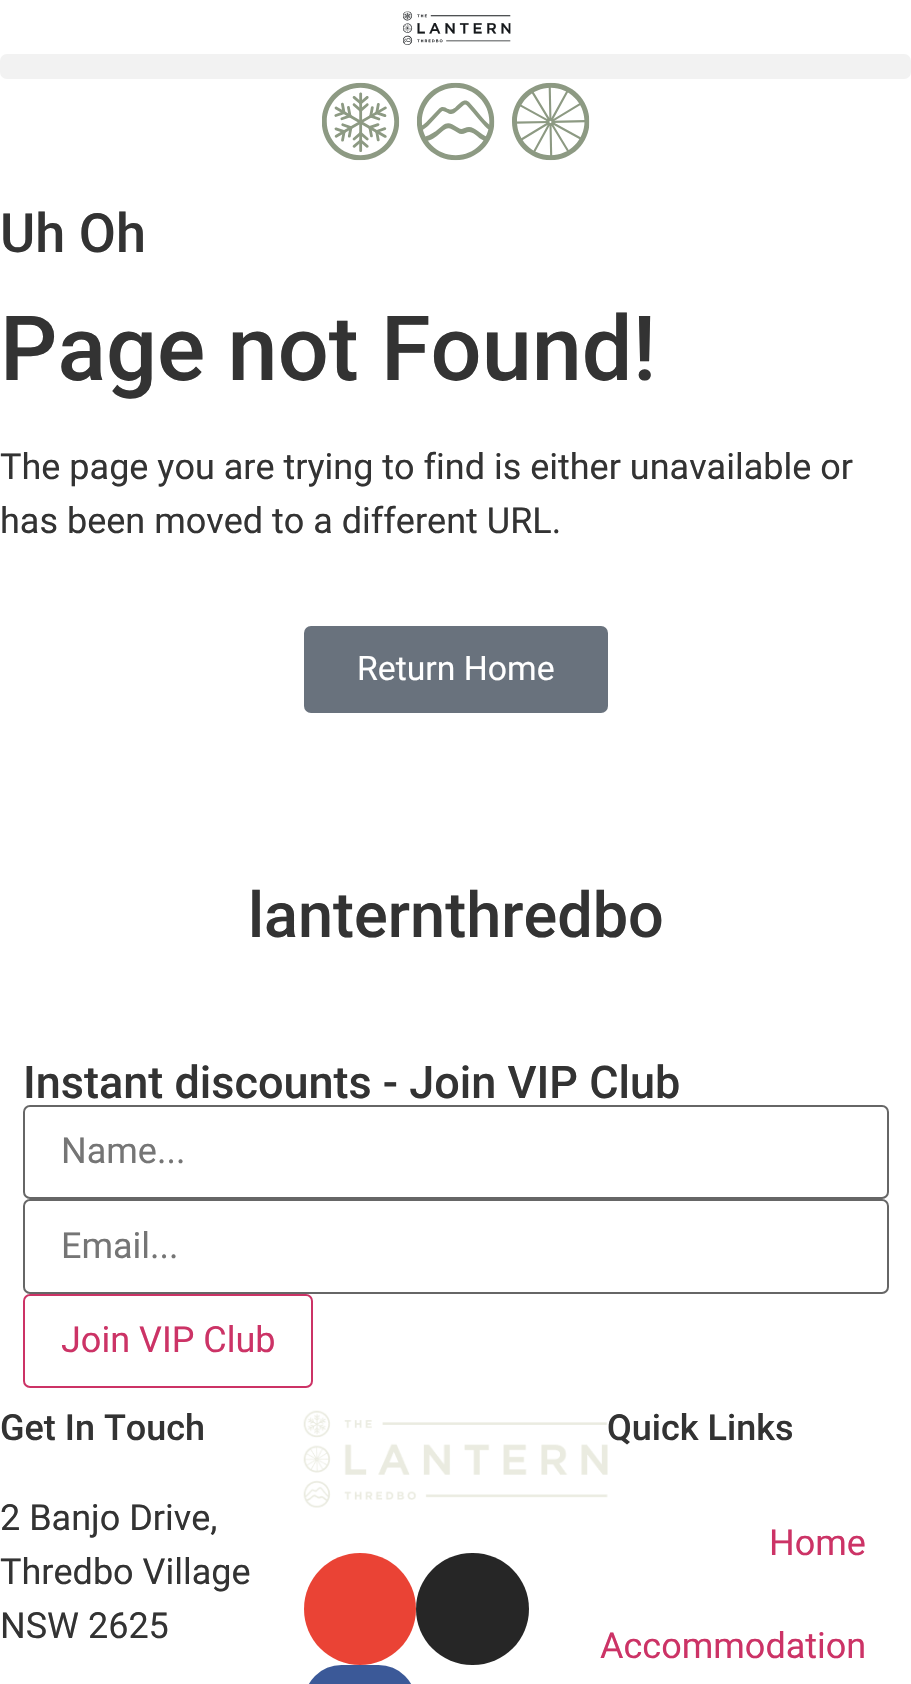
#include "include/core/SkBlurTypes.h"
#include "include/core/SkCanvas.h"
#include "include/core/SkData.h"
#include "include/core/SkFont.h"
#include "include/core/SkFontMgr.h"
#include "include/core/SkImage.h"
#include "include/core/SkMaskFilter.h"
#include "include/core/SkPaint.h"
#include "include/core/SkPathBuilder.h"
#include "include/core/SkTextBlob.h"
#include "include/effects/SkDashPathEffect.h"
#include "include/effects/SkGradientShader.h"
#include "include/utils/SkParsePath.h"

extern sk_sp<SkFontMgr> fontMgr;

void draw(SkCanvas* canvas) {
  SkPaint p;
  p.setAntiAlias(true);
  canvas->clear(SK_ColorWHITE);
  canvas->drawImageRect(SkImages::DeferredFromEncodedData(SkData::MakeFromFileName("images/1.png")), SkRect::MakeLTRB(403, 11, 511, 45), SkSamplingOptions());
  p.setColor(SkColorSetRGB(242, 242, 242));
  canvas->drawRoundRect(SkRect::MakeLTRB(0, 54, 911, 79), 7, 7, p);
  canvas->drawImageRect(SkImages::DeferredFromEncodedData(SkData::MakeFromFileName("images/2.png")), SkRect::MakeLTRB(322, 82, 590, 161), SkSamplingOptions());
  p.setColor(SkColorSetRGB(105, 114, 125));
  canvas->drawRoundRect(SkRect::MakeLTRB(304, 626, 608, 713), 7, 7, p);
  p.setStyle(SkPaint::kStroke_Style);
  p.setStrokeWidth(2);
  p.setColor(SkColorSetRGB(102, 102, 102));
  canvas->drawRoundRect(SkRect::MakeLTRB(24, 1106, 888, 1198), 6, 6, p);
  canvas->drawRoundRect(SkRect::MakeLTRB(24, 1200, 888, 1293), 6, 6, p);
  p.setColor(SkColorSetRGB(204, 51, 102));
  canvas->drawRoundRect(SkRect::MakeLTRB(24, 1295, 312, 1387), 6, 6, p);
  canvas->drawImageRect(SkImages::DeferredFromEncodedData(SkData::MakeFromFileName("images/3.png")), SkRect::MakeLTRB(303, 1410, 608, 1508), SkSamplingOptions());
  p.setStyle(SkPaint::kFill_Style);
  p.setColor(SkColorSetRGB(234, 67, 53));
  canvas->drawCircle(360, 1609, 56, p);
  p.setColor(SkColorSetRGB(38, 38, 38));
  canvas->drawRoundRect(SkRect::MakeLTRB(416, 1553, 529, 1665), 56, 56, p);
  p.setColor(SkColorSetRGB(59, 89, 152));
  canvas->drawRoundRect(SkRect::MakeLTRB(304, 1665, 416, 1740), 56, 56, p);
  SkFont font1(fontMgr->matchFamilyStyle("Roboto", SkFontStyle(500, SkFontStyle::kNormal_Width, SkFontStyle::kUpright_Slant)), 54);
  font1.setSubpixel(true);
  p.setColor(SkColorSetRGB(51, 51, 51));
  canvas->drawString("Uh Oh", 0, 252, font1, p);
  SkFont font2(fontMgr->matchFamilyStyle("Roboto", SkFontStyle(500, SkFontStyle::kNormal_Width, SkFontStyle::kUpright_Slant)), 90);
  font2.setSubpixel(true);
  canvas->drawString("Page not Found!", 0, 380, font2, p);
  SkFont font3(fontMgr->matchFamilyStyle("Roboto", SkFontStyle::Normal()), 36);
  font3.setSubpixel(true);
  canvas->drawString("The page you are trying to find is either unavailable or", 0, 479, font3, p);
  canvas->drawString("has been moved to a different URL.", 0, 533, font3, p);
  SkFont font4(fontMgr->matchFamilyStyle("Roboto", SkFontStyle::Normal()), 33.75f);
  font4.setSubpixel(true);
  p.setColor(SK_ColorWHITE);
  canvas->drawString("Return Home", 357, 680, font4, p);
  SkFont font5(fontMgr->matchFamilyStyle("Roboto", SkFontStyle(500, SkFontStyle::kNormal_Width, SkFontStyle::kUpright_Slant)), 63);
  font5.setSubpixel(true);
  p.setColor(SkColorSetRGB(51, 51, 51));
  canvas->drawString("lanternthredbo", 248, 937, font5, p);
  SkFont font6(fontMgr->matchFamilyStyle("Roboto", SkFontStyle(500, SkFontStyle::kNormal_Width, SkFontStyle::kUpright_Slant)), 45);
  font6.setSubpixel(true);
  canvas->drawString("Instant discounts - Join VIP Club", 23, 1098, font6, p);
  p.setColor(SkColorSetRGB(117, 117, 117));
  canvas->drawString("Name...", 61, 1163, font3, p);
  canvas->drawString("Email...", 61, 1258, font3, p);
  p.setColor(SkColorSetRGB(204, 51, 102));
  canvas->drawString("Join VIP Club", 61, 1352, font3, p);
  SkFont font7(fontMgr->matchFamilyStyle("Roboto", SkFontStyle(500, SkFontStyle::kNormal_Width, SkFontStyle::kUpright_Slant)), 36);
  font7.setSubpixel(true);
  p.setColor(SkColorSetRGB(51, 51, 51));
  canvas->drawString("Get In Touch", 0, 1440, font7, p);
  canvas->drawString("2 Banjo Drive,", 0, 1530, font3, p);
  canvas->drawString("Thredbo Village", 0, 1584, font3, p);
  canvas->drawString("NSW 2625", 0, 1638, font3, p);
  canvas->drawString("Quick Links", 607, 1440, font7, p);
  p.setColor(SkColorSetRGB(204, 51, 102));
  canvas->drawString("Home", 769, 1555, font3, p);
  canvas->drawString("Accommodation", 600, 1658, font3, p);
}
